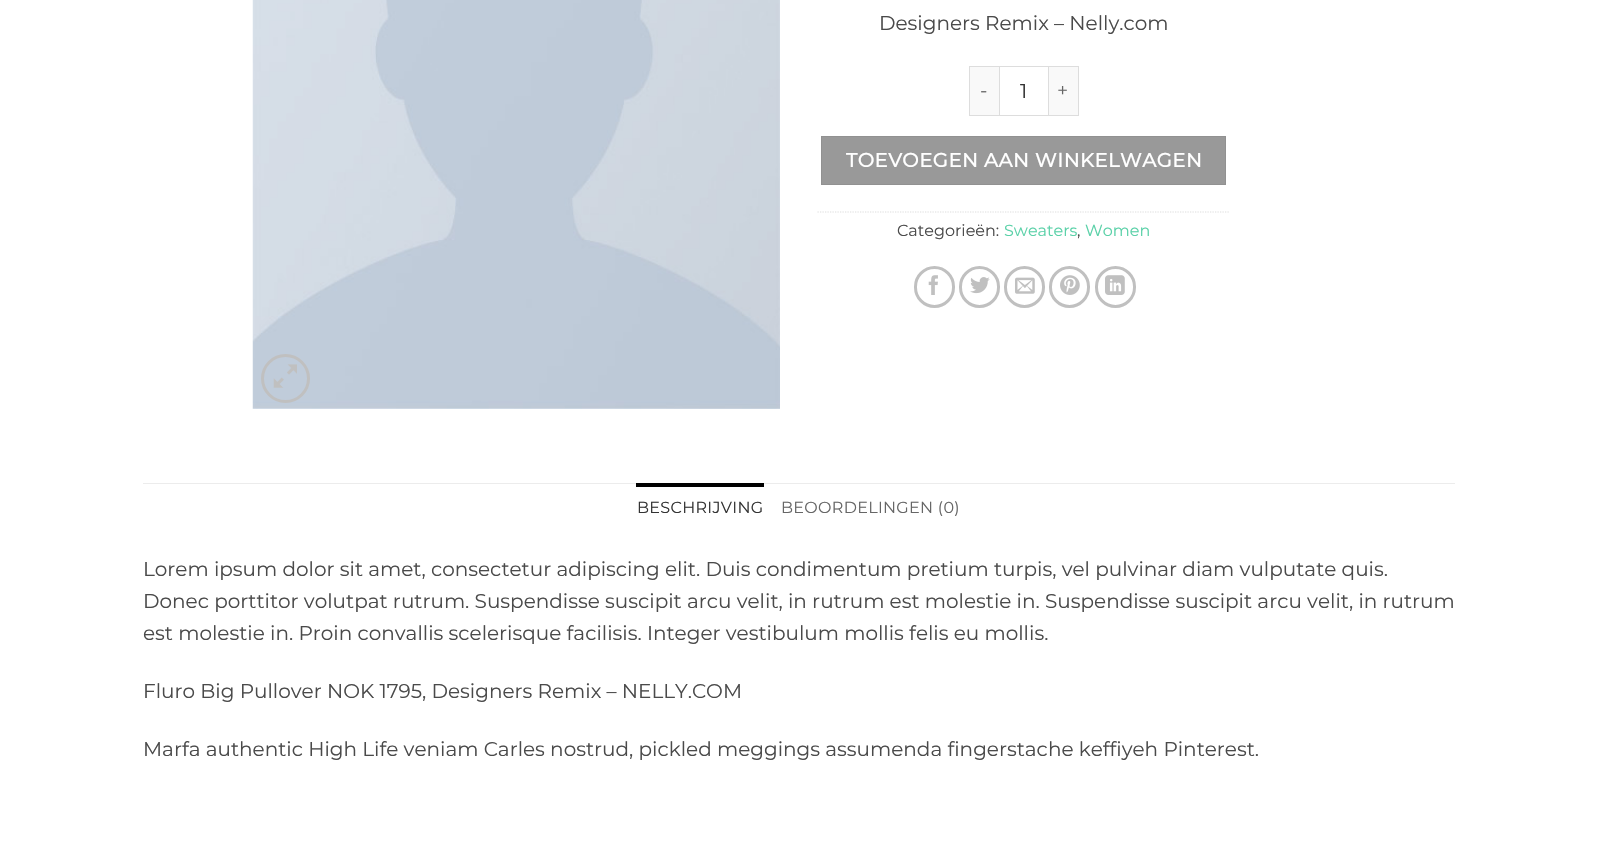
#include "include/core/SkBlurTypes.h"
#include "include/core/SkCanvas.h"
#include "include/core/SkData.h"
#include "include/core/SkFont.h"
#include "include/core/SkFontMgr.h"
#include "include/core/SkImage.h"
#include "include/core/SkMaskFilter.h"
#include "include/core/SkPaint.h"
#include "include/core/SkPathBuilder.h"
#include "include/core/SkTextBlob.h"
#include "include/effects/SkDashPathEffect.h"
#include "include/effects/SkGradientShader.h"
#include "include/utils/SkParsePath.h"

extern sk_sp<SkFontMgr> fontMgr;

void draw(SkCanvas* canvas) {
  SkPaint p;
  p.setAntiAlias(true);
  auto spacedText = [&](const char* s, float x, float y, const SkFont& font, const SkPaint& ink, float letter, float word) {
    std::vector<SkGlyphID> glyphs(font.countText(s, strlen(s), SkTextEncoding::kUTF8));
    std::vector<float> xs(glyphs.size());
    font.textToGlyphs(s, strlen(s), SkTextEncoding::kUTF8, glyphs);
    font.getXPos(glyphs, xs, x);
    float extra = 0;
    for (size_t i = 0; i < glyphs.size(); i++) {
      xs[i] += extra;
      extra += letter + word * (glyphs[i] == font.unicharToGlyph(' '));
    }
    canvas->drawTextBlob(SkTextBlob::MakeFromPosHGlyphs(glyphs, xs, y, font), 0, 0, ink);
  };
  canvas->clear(SK_ColorWHITE);
  canvas->drawImageRect(SkImages::DeferredFromEncodedData(SkData::MakeFromFileName("images/1.png")), SkRect::MakeLTRB(252, 0, 780, 409), SkSamplingOptions());
  p.setStyle(SkPaint::kStroke_Style);
  p.setStrokeWidth(3);
  p.setColor(SkColorSetRGB(192, 192, 192));
  canvas->drawCircle(285.5f, 378.5f, 23, p);
  canvas->drawImageRect(SkImages::DeferredFromEncodedData(SkData::MakeFromFileName("images/2.png")), SkRect::MakeLTRB(273, 364, 297, 388), SkSamplingOptions());
  p.setStyle(SkPaint::kFill_Style);
  p.setColor(SkColorSetRGB(249, 249, 249));
  canvas->drawRect(SkRect::MakeLTRB(970, 67, 999, 115), p);
  p.setColor(SkColorSetRGB(221, 221, 221));
  canvas->drawRect(SkRect::MakeLTRB(969, 66, 999, 67), p);
  canvas->drawRect(SkRect::MakeLTRB(969, 115, 999, 116), p);
  canvas->drawRect(SkRect::MakeLTRB(969, 66, 970, 116), p);
  p.setStyle(SkPaint::kStroke_Style);
  p.setStrokeWidth(1);
  canvas->drawRect(SkRect::MakeLTRB(999.5f, 66.5f, 1048.5f, 115.5f), p);
  p.setStyle(SkPaint::kFill_Style);
  p.setColor(SkColorSetRGB(249, 249, 249));
  canvas->drawRect(SkRect::MakeLTRB(1049, 67, 1078, 115), p);
  p.setColor(SkColorSetRGB(221, 221, 221));
  canvas->drawRect(SkRect::MakeLTRB(1049, 66, 1079, 67), p);
  canvas->drawRect(SkRect::MakeLTRB(1078, 66, 1079, 116), p);
  canvas->drawRect(SkRect::MakeLTRB(1049, 115, 1079, 116), p);
  p.setColor(SkColorSetRGB(153, 153, 153));
  canvas->drawRect(SkRect::MakeLTRB(821.5f, 136.5f, 1225.5f, 184.5f), p);
  p.setStyle(SkPaint::kStroke_Style);
  p.setColor(SkColorSetRGB(145, 145, 145));
  canvas->drawRect(SkRect::MakeLTRB(821.5f, 136.5f, 1225.5f, 184.5f), p);
  p.setStrokeWidth(1.2f);
  p.setColor(SkColorSetRGB(221, 221, 221));
  p.setPathEffect(SkDashPathEffect::Make({{1.25f, 1.25f}}, 0));
  canvas->drawPath(SkPathBuilder().moveTo(817.5f, 212).lineTo(1230, 212).detach(), p);
  p.setPathEffect(nullptr);
  p.setStrokeWidth(3);
  p.setColor(SkColorSetRGB(192, 192, 192));
  canvas->drawRoundRect(SkRect::MakeLTRB(915.5f, 267.5f, 953.5f, 306.5f), 19, 19, p);
  canvas->drawImageRect(SkImages::DeferredFromEncodedData(SkData::MakeFromFileName("images/3.png")), SkRect::MakeLTRB(928, 275, 938, 295), SkSamplingOptions());
  canvas->drawRoundRect(SkRect::MakeLTRB(960.5f, 267.5f, 998.5f, 306.5f), 19, 19, p);
  canvas->drawImageRect(SkImages::DeferredFromEncodedData(SkData::MakeFromFileName("images/4.png")), SkRect::MakeLTRB(970, 277, 990, 294), SkSamplingOptions());
  canvas->drawRoundRect(SkRect::MakeLTRB(1005.5f, 267.5f, 1043.5f, 306.5f), 19, 19, p);
  canvas->drawImageRect(SkImages::DeferredFromEncodedData(SkData::MakeFromFileName("images/5.png")), SkRect::MakeLTRB(1015, 277, 1035, 294), SkSamplingOptions());
  canvas->drawRoundRect(SkRect::MakeLTRB(1050.5f, 267.5f, 1088.5f, 306.5f), 19, 19, p);
  canvas->drawImageRect(SkImages::DeferredFromEncodedData(SkData::MakeFromFileName("images/6.png")), SkRect::MakeLTRB(1060, 275, 1080, 295), SkSamplingOptions());
  canvas->drawRoundRect(SkRect::MakeLTRB(1096.5f, 267.5f, 1134.5f, 306.5f), 19, 19, p);
  canvas->drawImageRect(SkImages::DeferredFromEncodedData(SkData::MakeFromFileName("images/7.png")), SkRect::MakeLTRB(1105, 275, 1125, 295), SkSamplingOptions());
  p.setStyle(SkPaint::kFill_Style);
  p.setColor(SkColorSetRGB(236, 236, 236));
  canvas->drawRect(SkRect::MakeLTRB(143, 483, 1455, 484), p);
  p.setColor(SK_ColorBLACK);
  canvas->drawRect(SkRect::MakeLTRB(636, 483, 764, 487), p);
  SkFont font1(fontMgr->matchFamilyStyle("Montserrat", SkFontStyle(100, SkFontStyle::kNormal_Width, SkFontStyle::kUpright_Slant)), 20);
  font1.setSubpixel(true);
  p.setColor(SkColorSetRGB(74, 74, 74));
  canvas->drawString("Designers Remix – Nelly.com", 879, 30, font1, p);
  SkFont font2(fontMgr->matchFamilyStyle("Montserrat", SkFontStyle(100, SkFontStyle::kNormal_Width, SkFontStyle::kUpright_Slant)), 19.4f);
  font2.setSubpixel(true);
  p.setColor(SkColorSetRGB(102, 102, 102));
  spacedText("-", 980, 97, font2, p, 0.6f, 0);
  p.setColor(SkColorSetRGB(51, 51, 51));
  canvas->drawString("1", 1020, 98, font1, p);
  p.setColor(SkColorSetRGB(102, 102, 102));
  spacedText("+", 1057, 97, font2, p, 0.6f, 0);
  SkFont font3(fontMgr->matchFamilyStyle("Montserrat", SkFontStyle::Bold()), 19.4f);
  font3.setSubpixel(true);
  p.setColor(SK_ColorWHITE);
  spacedText("TOEVOEGEN AAN WINKELWAGEN", 846, 167, font3, p, 0.6f, 0);
  SkFont font4(fontMgr->matchFamilyStyle("Montserrat", SkFontStyle(100, SkFontStyle::kNormal_Width, SkFontStyle::kUpright_Slant)), 16);
  font4.setSubpixel(true);
  p.setColor(SkColorSetRGB(74, 74, 74));
  canvas->drawString("Categorieën:", 897, 236, font4, p);
  p.setColor(SkColorSetRGB(90, 209, 168));
  canvas->drawString("Sweaters", 1004, 236, font4, p);
  p.setColor(SkColorSetRGB(74, 74, 74));
  canvas->drawString(",", 1077, 236, font4, p);
  p.setColor(SkColorSetRGB(90, 209, 168));
  canvas->drawString("Women", 1085, 236, font4, p);
  p.setColor(SkColorSetRGB(51, 51, 51));
  spacedText("BESCHRIJVING", 637, 513, font4, p, 0.3f, 0);
  p.setColor(SkColorSetRGB(102, 102, 102));
  spacedText("BEOORDELINGEN (0)", 781, 513, font4, p, 0.3f, 0);
  p.setColor(SkColorSetRGB(74, 74, 74));
  canvas->drawString("Lorem ipsum dolor sit amet, consectetur adipiscing elit. Duis condimentum pretium turpis, vel pulvinar diam vulputate quis.", 143, 576, font1, p);
  canvas->drawString("Donec porttitor volutpat rutrum. Suspendisse suscipit arcu velit, in rutrum est molestie in. Suspendisse suscipit arcu velit, in rutrum", 143, 608, font1, p);
  canvas->drawString("est molestie in. Proin convallis scelerisque facilisis. Integer vestibulum mollis felis eu mollis.", 143, 640, font1, p);
  canvas->drawString("Fluro Big Pullover NOK 1795, Designers Remix – NELLY.COM", 143, 698, font1, p);
  canvas->drawString("Marfa authentic High Life veniam Carles nostrud, pickled meggings assumenda fingerstache keffiyeh Pinterest.", 143, 756, font1, p);
}
